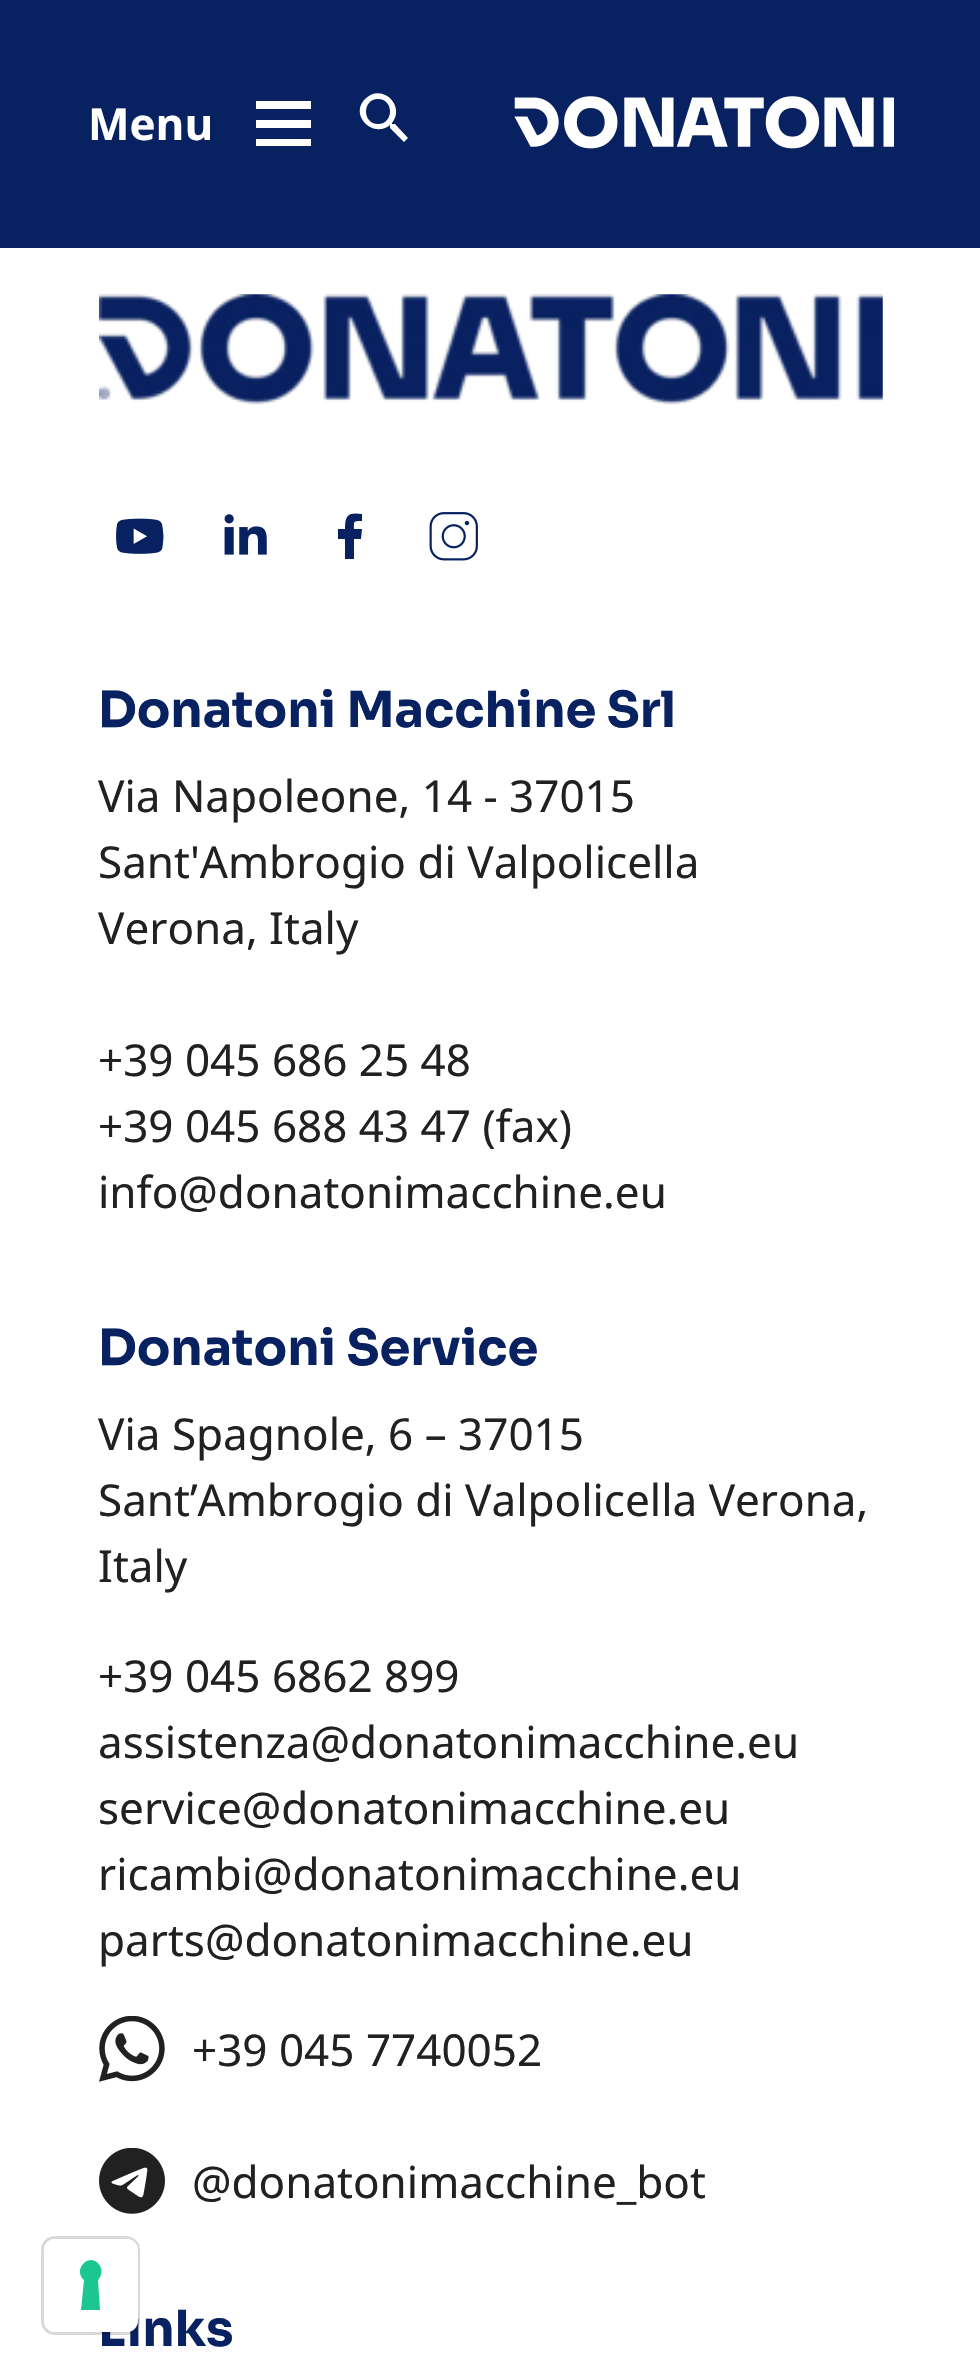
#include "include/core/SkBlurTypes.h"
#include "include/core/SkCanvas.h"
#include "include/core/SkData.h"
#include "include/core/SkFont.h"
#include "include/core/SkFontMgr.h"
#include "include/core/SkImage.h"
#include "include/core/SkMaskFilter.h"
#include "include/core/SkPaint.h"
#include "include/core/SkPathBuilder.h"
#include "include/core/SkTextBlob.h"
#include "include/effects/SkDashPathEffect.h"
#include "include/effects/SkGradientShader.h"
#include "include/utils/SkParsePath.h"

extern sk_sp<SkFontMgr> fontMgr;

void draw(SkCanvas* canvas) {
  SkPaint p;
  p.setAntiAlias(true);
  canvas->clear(SK_ColorWHITE);
  p.setColor(SkColorSetRGB(8, 33, 97));
  canvas->drawRect(SkRect::MakeLTRB(0, 0, 980, 248), p);
  p.setColor(SK_ColorWHITE);
  canvas->drawPath(SkPathBuilder().moveTo(256, 146).lineTo(256, 139).lineTo(311, 139).lineTo(311, 146).close().moveTo(256, 128).lineTo(256, 120).lineTo(311, 120).lineTo(311, 128).close().moveTo(256, 109).lineTo(256, 101).lineTo(311, 101).lineTo(311, 109).close().detach(), p);
  canvas->drawPath(SkPathBuilder().moveTo(395, 124).lineTo(392, 124).lineTo(392, 123).cubicTo(406, 106, 382, 82, 365, 99).cubicTo(349, 115, 373, 139, 390, 125).lineTo(390, 126).lineTo(390, 128).lineTo(404, 142).lineTo(408, 138).close().moveTo(378, 124).cubicTo(362, 124, 362, 99, 378, 99).cubicTo(394, 99, 394, 124, 378, 124).close().detach(), p);
  canvas->drawImageRect(SkImages::DeferredFromEncodedData(SkData::MakeFromFileName("images/1.png")), SkRect::MakeLTRB(514, 96, 894, 149), SkSamplingOptions());
  canvas->drawImageRect(SkImages::DeferredFromEncodedData(SkData::MakeFromFileName("images/2.png")), SkRect::MakeLTRB(99, 294, 883, 405), SkSamplingOptions());
  canvas->drawImageRect(SkImages::DeferredFromEncodedData(SkData::MakeFromFileName("images/3.png")), SkRect::MakeLTRB(116, 518, 164, 554), SkSamplingOptions());
  canvas->drawImageRect(SkImages::DeferredFromEncodedData(SkData::MakeFromFileName("images/4.png")), SkRect::MakeLTRB(224, 514, 267, 555), SkSamplingOptions());
  p.setColor(SkColorSetRGB(8, 33, 97));
  canvas->drawPath(SkPathBuilder().moveTo(362, 529).lineTo(354, 529).cubicTo(354, 521, 353, 521, 362, 521).lineTo(362, 514).cubicTo(348, 512, 345, 515, 345, 529).lineTo(338, 529).lineTo(338, 539).lineTo(345, 539).lineTo(345, 559).lineTo(354, 559).lineTo(354, 539).lineTo(361, 539).close().detach(), p);
  canvas->drawImageRect(SkImages::DeferredFromEncodedData(SkData::MakeFromFileName("images/5.png")), SkRect::MakeLTRB(429, 512, 478, 561), SkSamplingOptions());
  canvas->drawImageRect(SkImages::DeferredFromEncodedData(SkData::MakeFromFileName("images/6.png")), SkRect::MakeLTRB(99, 2016, 165, 2082), SkSamplingOptions());
  canvas->drawImageRect(SkImages::DeferredFromEncodedData(SkData::MakeFromFileName("images/7.png")), SkRect::MakeLTRB(99, 2148, 165, 2214), SkSamplingOptions());
  SkFont font1(fontMgr->matchFamilyStyle("Noto Sans", SkFontStyle::Bold()), 44);
  font1.setSubpixel(true);
  p.setColor(SK_ColorWHITE);
  canvas->drawString("Menu", 88, 140, font1, p);
  SkFont font2(fontMgr->matchFamilyStyle("Sora", SkFontStyle::Bold()), 49.5f);
  font2.setSubpixel(true);
  p.setColor(SkColorSetRGB(8, 33, 97));
  canvas->drawString("Donatoni Macchine Srl", 98, 727, font2, p);
  SkFont font3(fontMgr->matchFamilyStyle("Noto Sans", SkFontStyle::Normal()), 44);
  font3.setSubpixel(true);
  p.setColor(SkColorSetRGB(33, 33, 33));
  canvas->drawString("Via Napoleone, 14 - 37015", 98, 812, font3, p);
  canvas->drawString("Sant'Ambrogio di Valpolicella", 98, 878, font3, p);
  canvas->drawString("Verona, Italy", 98, 944, font3, p);
  canvas->drawString("+39 045 686 25 48", 98, 1076, font3, p);
  canvas->drawString("+39 045 688 43 47 (fax)", 98, 1142, font3, p);
  canvas->drawString("info@donatonimacchine.eu", 98, 1208, font3, p);
  p.setColor(SkColorSetRGB(8, 33, 97));
  canvas->drawString("Donatoni Service", 98, 1365, font2, p);
  p.setColor(SkColorSetRGB(33, 33, 33));
  canvas->drawString("Via Spagnole, 6 – 37015", 98, 1450, font3, p);
  canvas->drawString("Sant’Ambrogio di Valpolicella Verona,", 98, 1516, font3, p);
  canvas->drawString("Italy", 98, 1582, font3, p);
  canvas->drawString("+39 045 6862 899", 98, 1692, font3, p);
  canvas->drawString("assistenza@donatonimacchine.eu", 98, 1758, font3, p);
  canvas->drawString("service@donatonimacchine.eu", 98, 1824, font3, p);
  canvas->drawString("ricambi@donatonimacchine.eu", 98, 1890, font3, p);
  canvas->drawString("parts@donatonimacchine.eu", 98, 1956, font3, p);
  canvas->drawString("+39 045 7740052", 192, 2066, font3, p);
  canvas->drawString("@donatonimacchine_bot", 192, 2198, font3, p);
  p.setColor(SkColorSetRGB(8, 33, 97));
  canvas->drawString("Links", 98, 2346, font2, p);
  p.setStyle(SkPaint::kStroke_Style);
  p.setStrokeWidth(3);
  p.setColor(SkColorSetARGB(38, 0, 0, 0));
  canvas->drawRoundRect(SkRect::MakeLTRB(42.5f, 2237.5f, 138.5f, 2333.5f), 12.5f, 12.5f, p);
  p.setStyle(SkPaint::kFill_Style);
  p.setColor(SK_ColorWHITE);
  canvas->drawRoundRect(SkRect::MakeLTRB(44, 2239, 138, 2332), 11, 11, p);
  p.setColor(SkColorSetRGB(28, 198, 145));
  canvas->drawPath(SkPathBuilder(SkPathFillType::kEvenOdd).moveTo(91, 2260).cubicTo(101, 2261, 105, 2273, 98, 2280).lineTo(100, 2310).lineTo(81, 2310).lineTo(84, 2280).cubicTo(76, 2273, 81, 2261, 91, 2260).close().detach(), p);
}
